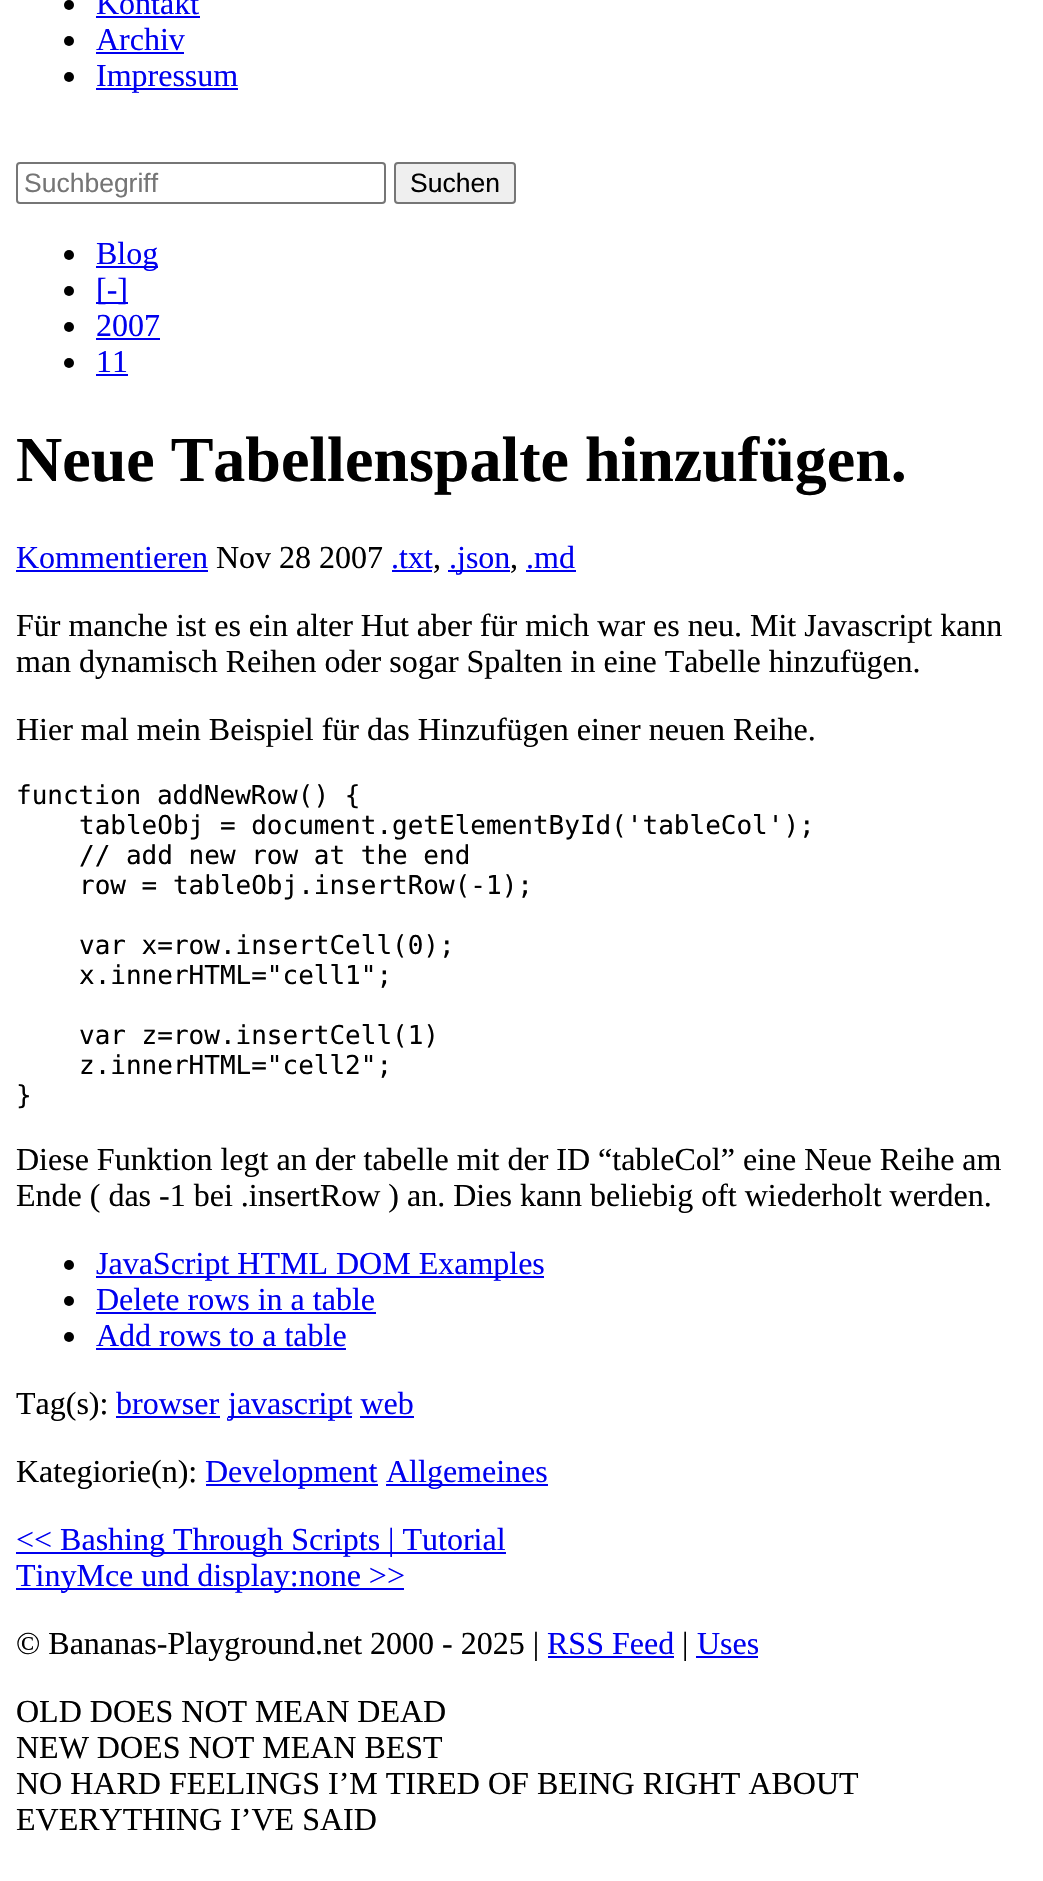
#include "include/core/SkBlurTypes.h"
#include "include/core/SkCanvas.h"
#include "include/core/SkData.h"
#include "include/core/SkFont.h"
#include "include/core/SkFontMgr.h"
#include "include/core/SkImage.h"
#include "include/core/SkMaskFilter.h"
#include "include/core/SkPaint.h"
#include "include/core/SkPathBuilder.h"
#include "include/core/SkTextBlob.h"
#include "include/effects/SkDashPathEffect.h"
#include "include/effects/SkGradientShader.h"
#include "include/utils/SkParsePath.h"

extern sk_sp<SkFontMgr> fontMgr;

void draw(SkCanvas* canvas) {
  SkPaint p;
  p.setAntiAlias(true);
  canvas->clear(SK_ColorWHITE);
  p.setColor(SK_ColorBLACK);
  canvas->drawCircle(69, 5, 5, p);
  p.setColor(SkColorSetRGB(0, 0, 238));
  canvas->drawRect(SkRect::MakeLTRB(96, 16, 200, 18), p);
  p.setColor(SK_ColorBLACK);
  canvas->drawCircle(69, 41, 5, p);
  p.setColor(SkColorSetRGB(0, 0, 238));
  canvas->drawRect(SkRect::MakeLTRB(96, 52, 184, 54), p);
  p.setColor(SK_ColorBLACK);
  canvas->drawCircle(69, 77, 5, p);
  p.setColor(SkColorSetRGB(0, 0, 238));
  canvas->drawRect(SkRect::MakeLTRB(96, 88, 238, 90), p);
  p.setStyle(SkPaint::kStroke_Style);
  p.setStrokeWidth(2);
  p.setColor(SkColorSetRGB(118, 118, 118));
  canvas->drawRoundRect(SkRect::MakeLTRB(17, 163, 385, 203), 3, 3, p);
  p.setStyle(SkPaint::kFill_Style);
  p.setColor(SkColorSetRGB(239, 239, 239));
  canvas->drawRoundRect(SkRect::MakeLTRB(395, 163, 515, 203), 3, 3, p);
  p.setStyle(SkPaint::kStroke_Style);
  p.setColor(SkColorSetRGB(118, 118, 118));
  canvas->drawRoundRect(SkRect::MakeLTRB(395, 163, 515, 203), 3, 3, p);
  p.setStyle(SkPaint::kFill_Style);
  p.setColor(SK_ColorBLACK);
  canvas->drawCircle(69, 255, 5, p);
  p.setColor(SkColorSetRGB(0, 0, 238));
  canvas->drawRect(SkRect::MakeLTRB(96, 266, 158, 268), p);
  p.setColor(SK_ColorBLACK);
  canvas->drawCircle(69, 291, 5, p);
  p.setColor(SkColorSetRGB(0, 0, 238));
  canvas->drawRect(SkRect::MakeLTRB(96, 302, 128, 304), p);
  p.setColor(SK_ColorBLACK);
  canvas->drawCircle(69, 327, 5, p);
  p.setColor(SkColorSetRGB(0, 0, 238));
  canvas->drawRect(SkRect::MakeLTRB(96, 338, 160, 340), p);
  p.setColor(SK_ColorBLACK);
  canvas->drawCircle(69, 363, 5, p);
  p.setColor(SkColorSetRGB(0, 0, 238));
  canvas->drawRect(SkRect::MakeLTRB(96, 374, 128, 376), p);
  canvas->drawRect(SkRect::MakeLTRB(16, 570, 208, 572), p);
  canvas->drawRect(SkRect::MakeLTRB(392, 570, 432, 572), p);
  canvas->drawRect(SkRect::MakeLTRB(448, 570, 510, 572), p);
  canvas->drawRect(SkRect::MakeLTRB(526, 570, 576, 572), p);
  p.setColor(SK_ColorBLACK);
  canvas->drawCircle(69, 1265, 5, p);
  p.setColor(SkColorSetRGB(0, 0, 238));
  canvas->drawRect(SkRect::MakeLTRB(96, 1276, 544, 1278), p);
  p.setColor(SK_ColorBLACK);
  canvas->drawCircle(69, 1301, 5, p);
  p.setColor(SkColorSetRGB(0, 0, 238));
  canvas->drawRect(SkRect::MakeLTRB(96, 1312, 376, 1314), p);
  p.setColor(SK_ColorBLACK);
  canvas->drawCircle(69, 1337, 5, p);
  p.setColor(SkColorSetRGB(0, 0, 238));
  canvas->drawRect(SkRect::MakeLTRB(96, 1348, 346, 1350), p);
  canvas->drawRect(SkRect::MakeLTRB(116, 1416, 220, 1418), p);
  canvas->drawRect(SkRect::MakeLTRB(228, 1416, 352, 1418), p);
  canvas->drawRect(SkRect::MakeLTRB(360, 1416, 414, 1418), p);
  canvas->drawRect(SkRect::MakeLTRB(206, 1484, 378, 1486), p);
  canvas->drawRect(SkRect::MakeLTRB(386, 1484, 548, 1486), p);
  canvas->drawRect(SkRect::MakeLTRB(16, 1552, 506, 1554), p);
  canvas->drawRect(SkRect::MakeLTRB(16, 1588, 404, 1590), p);
  canvas->drawRect(SkRect::MakeLTRB(548, 1656, 674, 1658), p);
  canvas->drawRect(SkRect::MakeLTRB(696, 1656, 758, 1658), p);
  SkFont font1(fontMgr->matchFamilyStyle("Liberation Serif", SkFontStyle::Normal()), 32);
  font1.setSubpixel(true);
  canvas->drawString("Kontakt", 96, 14, font1, p);
  canvas->drawString("Archiv", 96, 50, font1, p);
  canvas->drawString("Impressum", 96, 86, font1, p);
  SkFont font2(fontMgr->matchFamilyStyle("Liberation Sans", SkFontStyle::Normal()), 26.5f);
  font2.setSubpixel(true);
  p.setColor(SkColorSetRGB(117, 117, 117));
  canvas->drawString("Suchbegriff", 24, 192, font2, p);
  p.setColor(SK_ColorBLACK);
  canvas->drawString("Suchen", 410, 192, font2, p);
  p.setColor(SkColorSetRGB(0, 0, 238));
  canvas->drawString("Blog", 96, 264, font1, p);
  canvas->drawString("[-]", 96, 300, font1, p);
  canvas->drawString("2007", 96, 336, font1, p);
  canvas->drawString("11", 96, 372, font1, p);
  SkFont font3(fontMgr->matchFamilyStyle("Liberation Serif", SkFontStyle::Bold()), 64);
  font3.setSubpixel(true);
  p.setColor(SK_ColorBLACK);
  canvas->drawString("Neue Tabellenspalte hinzufügen.", 16, 481, font3, p);
  p.setColor(SkColorSetRGB(0, 0, 238));
  canvas->drawString("Kommentieren", 16, 568, font1, p);
  p.setColor(SK_ColorBLACK);
  canvas->drawString("Nov 28 2007", 216, 568, font1, p);
  p.setColor(SkColorSetRGB(0, 0, 238));
  canvas->drawString(".txt", 391, 568, font1, p);
  p.setColor(SK_ColorBLACK);
  canvas->drawString(",", 433, 568, font1, p);
  p.setColor(SkColorSetRGB(0, 0, 238));
  canvas->drawString(".json", 449, 568, font1, p);
  p.setColor(SK_ColorBLACK);
  canvas->drawString(",", 510, 568, font1, p);
  p.setColor(SkColorSetRGB(0, 0, 238));
  canvas->drawString(".md", 526, 568, font1, p);
  p.setColor(SK_ColorBLACK);
  canvas->drawString("Für manche ist es ein alter Hut aber für mich war es neu. Mit Javascript kann", 16, 636, font1, p);
  canvas->drawString("man dynamisch Reihen oder sogar Spalten in eine Tabelle hinzufügen.", 16, 672, font1, p);
  canvas->drawString("Hier mal mein Beispiel für das Hinzufügen einer neuen Reihe.", 16, 740, font1, p);
  SkFont font4(fontMgr->matchFamilyStyle("DejaVu Sans Mono", SkFontStyle::Normal()), 26);
  font4.setSubpixel(true);
  canvas->drawString("function addNewRow() {", 16, 804, font4, p);
  canvas->drawString("tableObj = document.getElementById('tableCol');", 79, 834, font4, p);
  canvas->drawString("// add new row at the end", 79, 864, font4, p);
  canvas->drawString("row = tableObj.insertRow(-1);", 79, 894, font4, p);
  canvas->drawString("var x=row.insertCell(0);", 79, 954, font4, p);
  canvas->drawString("x.innerHTML=\"cell1\";", 79, 984, font4, p);
  canvas->drawString("var z=row.insertCell(1)", 79, 1044, font4, p);
  canvas->drawString("z.innerHTML=\"cell2\";", 79, 1074, font4, p);
  canvas->drawString("}", 16, 1104, font4, p);
  canvas->drawString("Diese Funktion legt an der tabelle mit der ID “tableCol” eine Neue Reihe am", 16, 1170, font1, p);
  canvas->drawString("Ende ( das -1 bei .insertRow ) an. Dies kann beliebig oft wiederholt werden.", 16, 1206, font1, p);
  p.setColor(SkColorSetRGB(0, 0, 238));
  canvas->drawString("JavaScript HTML DOM Examples", 96, 1274, font1, p);
  canvas->drawString("Delete rows in a table", 96, 1310, font1, p);
  canvas->drawString("Add rows to a table", 96, 1346, font1, p);
  p.setColor(SK_ColorBLACK);
  canvas->drawString("Tag(s):", 16, 1414, font1, p);
  p.setColor(SkColorSetRGB(0, 0, 238));
  canvas->drawString("browser", 116, 1414, font1, p);
  canvas->drawString("javascript web", 228, 1414, font1, p);
  p.setColor(SK_ColorBLACK);
  canvas->drawString("Kategiorie(n):", 16, 1482, font1, p);
  p.setColor(SkColorSetRGB(0, 0, 238));
  canvas->drawString("Development", 205, 1482, font1, p);
  canvas->drawString("Allgemeines", 386, 1482, font1, p);
  canvas->drawString("<< Bashing Through Scripts | Tutorial", 16, 1550, font1, p);
  canvas->drawString("TinyMce und display:none >>", 16, 1586, font1, p);
  p.setColor(SK_ColorBLACK);
  canvas->drawString("© Bananas-Playground.net 2000 - 2025 |", 16, 1654, font1, p);
  p.setColor(SkColorSetRGB(0, 0, 238));
  canvas->drawString("RSS Feed", 547, 1654, font1, p);
  p.setColor(SK_ColorBLACK);
  canvas->drawString("|", 682, 1654, font1, p);
  p.setColor(SkColorSetRGB(0, 0, 238));
  canvas->drawString("Uses", 697, 1654, font1, p);
  p.setColor(SK_ColorBLACK);
  canvas->drawString("OLD DOES NOT MEAN DEAD", 16, 1722, font1, p);
  canvas->drawString("NEW DOES NOT MEAN BEST", 16, 1758, font1, p);
  canvas->drawString("NO HARD FEELINGS I’M TIRED OF BEING RIGHT ABOUT", 16, 1794, font1, p);
  canvas->drawString("EVERYTHING I’VE SAID", 16, 1830, font1, p);
}
